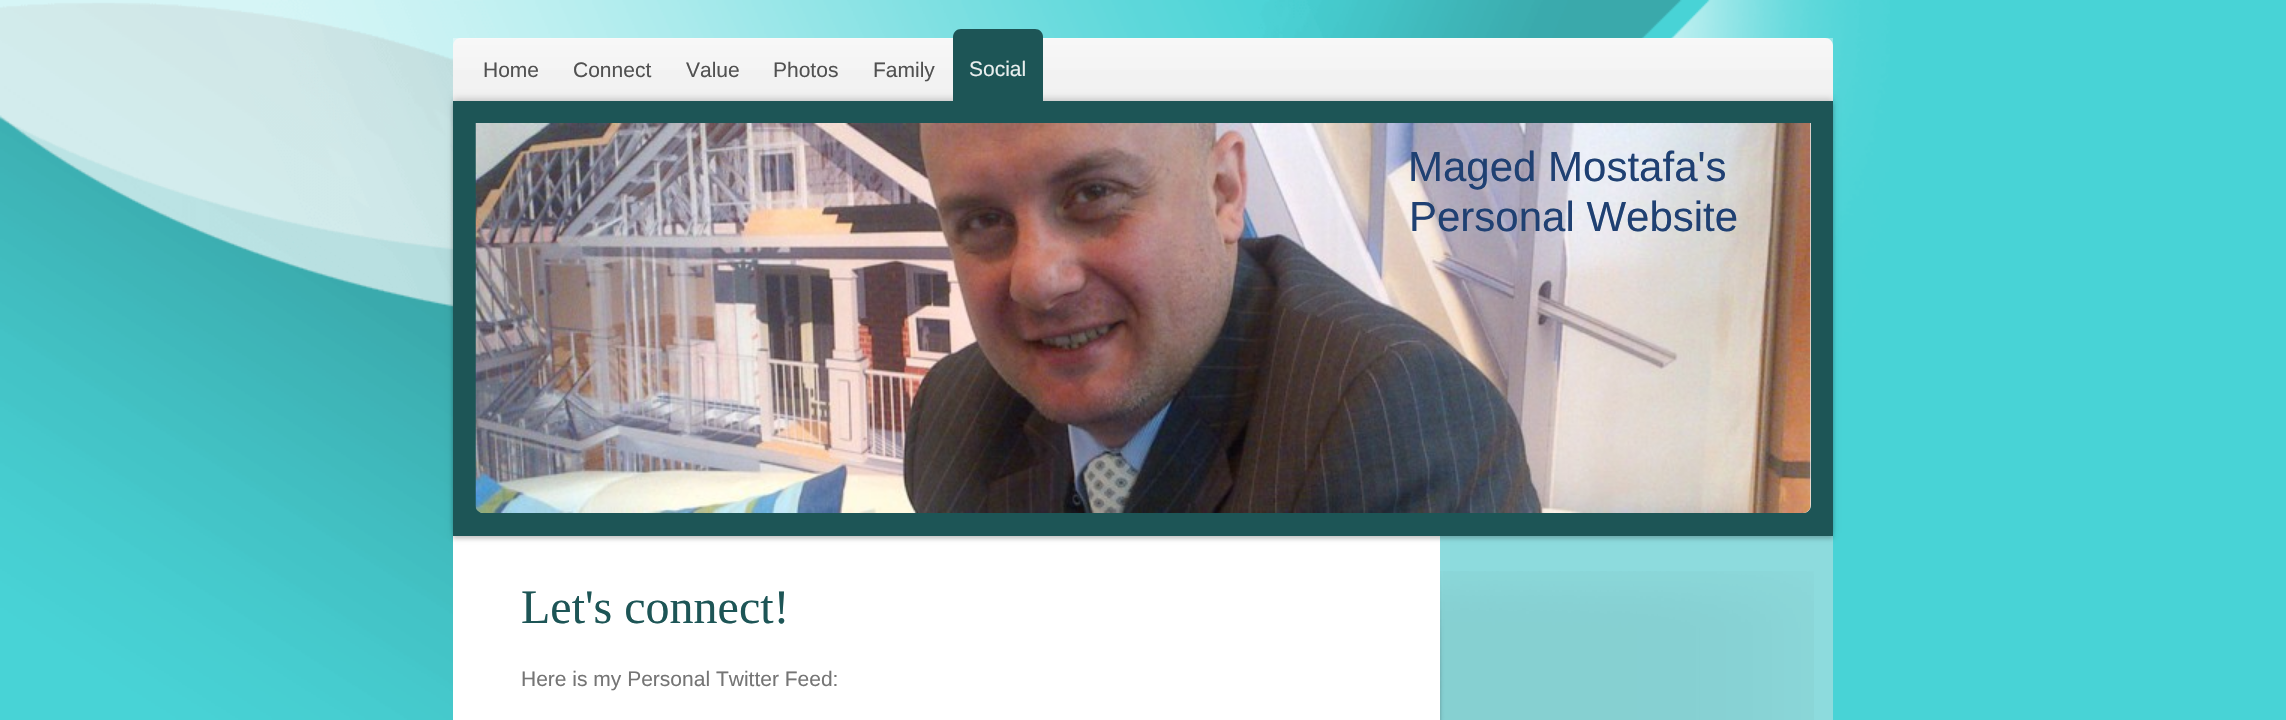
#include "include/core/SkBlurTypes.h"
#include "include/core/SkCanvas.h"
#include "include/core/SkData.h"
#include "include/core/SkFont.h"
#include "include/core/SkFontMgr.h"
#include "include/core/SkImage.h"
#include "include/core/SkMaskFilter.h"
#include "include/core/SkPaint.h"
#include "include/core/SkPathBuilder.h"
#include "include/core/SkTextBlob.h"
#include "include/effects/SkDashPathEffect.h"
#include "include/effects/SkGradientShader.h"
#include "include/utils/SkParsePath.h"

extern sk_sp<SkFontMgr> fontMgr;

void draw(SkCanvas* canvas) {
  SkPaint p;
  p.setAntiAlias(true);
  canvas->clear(SkColorSetRGB(72, 211, 214));
  canvas->drawImageRect(SkImages::DeferredFromEncodedData(SkData::MakeFromFileName("images/1.png")), SkRect::MakeLTRB(0, 0, 1890, 720), SkSamplingOptions());
  p.setColor(SkColorSetRGB(242, 242, 242));
  canvas->drawPath(SkPathBuilder().moveTo(461, 38).lineTo(1825, 38).cubicTo(1829.5f, 38, 1833, 41.5f, 1833, 46).lineTo(1833, 102).lineTo(453, 102).lineTo(453, 46).cubicTo(453, 41.5f, 456.5f, 38, 461, 38).close().detach(), p);
  p.setColor(SkColorSetARGB(77, 255, 255, 255));
  canvas->drawPath(SkPathBuilder().moveTo(460, 39).lineTo(1826, 39).cubicTo(1830, 39, 1833, 42, 1833, 46).cubicTo(1833, 42, 1829, 38, 1825, 38).lineTo(461, 38).cubicTo(457, 38, 453, 42, 453, 46).cubicTo(453, 42, 456, 39, 460, 39).close().detach(), p);
  {
    const SkColor colors[] = {SkColorSetARGB(102, 255, 255, 255), SkColorSetARGB(0, 255, 255, 255)};
    const float stops[] = {0, 1};
    const SkPoint ends[] = {{437, 38}, {437, 102}};
    p.setShader(SkGradientShader::MakeLinear(ends, colors, stops, 2, SkTileMode::kClamp));
    p.setAlpha(255);
  }
  canvas->drawRect(SkRect::MakeLTRB(453, 38, 1833, 70), p);
  p.setShader(nullptr);
  p.setColor(SK_ColorWHITE);
  canvas->drawRect(SkRect::MakeLTRB(453, 536, 1440, 720), p);
  p.setColor(SkColorSetRGB(141, 219, 221));
  canvas->drawRect(SkRect::MakeLTRB(1440, 536, 1833, 720), p);
  p.setColor(SkColorSetARGB(38, 0, 0, 0));
  p.setMaskFilter(SkMaskFilter::MakeBlur(kNormal_SkBlurStyle, 3));
  canvas->drawRect(SkRect::MakeLTRB(453, 98, 1833, 533), p);
  p.setMaskFilter(nullptr);
  p.setColor(SkColorSetARGB(51, 0, 0, 0));
  p.setMaskFilter(SkMaskFilter::MakeBlur(kNormal_SkBlurStyle, 2));
  canvas->drawRect(SkRect::MakeLTRB(453, 104, 1833, 539), p);
  p.setMaskFilter(nullptr);
  p.setColor(SkColorSetRGB(29, 85, 86));
  canvas->drawRect(SkRect::MakeLTRB(453, 101, 1833, 536), p);
  canvas->drawPath(SkPathBuilder().moveTo(961, 29).lineTo(1035, 29).cubicTo(1039.5f, 29, 1043, 32.5f, 1043, 37).lineTo(1043, 102).lineTo(953, 102).lineTo(953, 37).cubicTo(953, 32.5f, 956.5f, 29, 961, 29).close().detach(), p);
  p.setColor(SkColorSetRGB(238, 238, 238));
  canvas->drawPath(SkPathBuilder().moveTo(476, 123).lineTo(1811, 123).lineTo(1811, 505).cubicTo(1811, 509.5f, 1807.5f, 513, 1803, 513).lineTo(484, 513).cubicTo(479.5f, 513, 476, 509.5f, 476, 505).close().detach(), p);
  canvas->drawImageRect(SkImages::DeferredFromEncodedData(SkData::MakeFromFileName("images/2.png")), SkRect::MakeLTRB(475, 123, 1811, 513), SkSamplingOptions());
  canvas->drawImageRect(SkImages::DeferredFromEncodedData(SkData::MakeFromFileName("images/3.png")), SkRect::MakeLTRB(1440, 571, 1814, 720), SkSamplingOptions());
  SkFont font1(fontMgr->matchFamilyStyle("Liberation Sans", SkFontStyle::Normal()), 21);
  font1.setSubpixel(true);
  p.setColor(SkColorSetRGB(81, 81, 81));
  canvas->drawString("Home", 483, 77, font1, p);
  canvas->drawString("Connect", 573, 77, font1, p);
  canvas->drawString("Value", 686, 77, font1, p);
  canvas->drawString("Photos", 773, 77, font1, p);
  canvas->drawString("Family", 873, 77, font1, p);
  p.setColor(SkColorSetRGB(232, 238, 238));
  canvas->drawString("Social", 969, 76, font1, p);
  SkFont font2(fontMgr->matchFamilyStyle("Liberation Sans", SkFontStyle::Normal()), 42);
  font2.setSubpixel(true);
  p.setColor(SkColorSetRGB(31, 64, 114));
  canvas->drawString("Maged Mostafa's", 1408, 181, font2, p);
  canvas->drawString("Personal Website", 1409, 231, font2, p);
  SkFont font3(fontMgr->matchFamilyStyle("Liberation Serif", SkFontStyle::Normal()), 48);
  font3.setSubpixel(true);
  p.setColor(SkColorSetRGB(29, 85, 86));
  canvas->drawString("Let's connect!", 521, 623, font3, p);
  p.setColor(SkColorSetRGB(117, 117, 117));
  canvas->drawString("Here is my Personal Twitter Feed:", 521, 686, font1, p);
}
